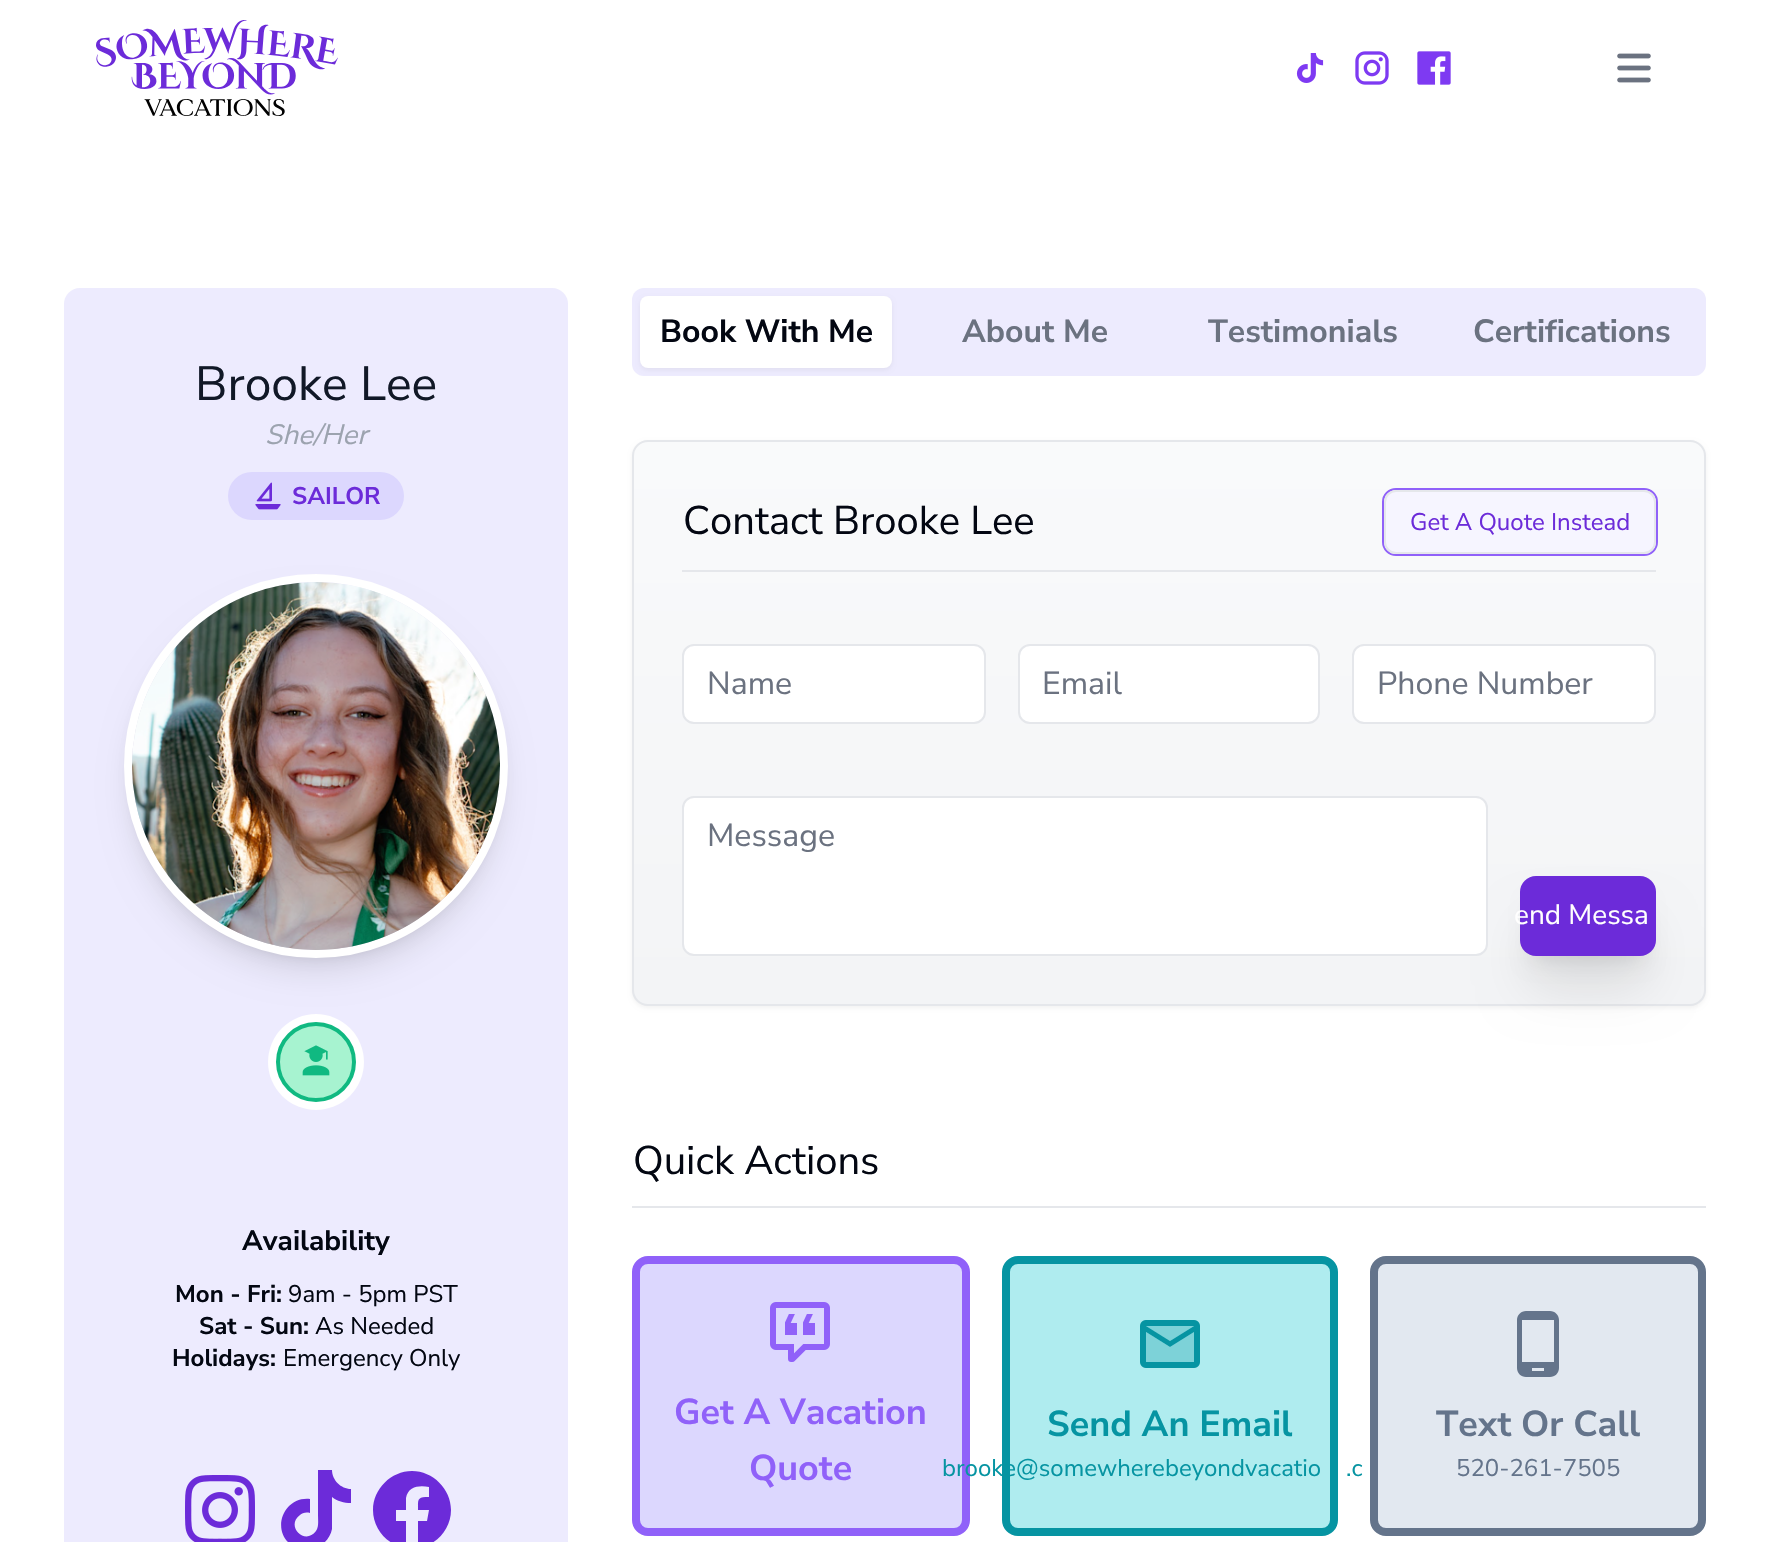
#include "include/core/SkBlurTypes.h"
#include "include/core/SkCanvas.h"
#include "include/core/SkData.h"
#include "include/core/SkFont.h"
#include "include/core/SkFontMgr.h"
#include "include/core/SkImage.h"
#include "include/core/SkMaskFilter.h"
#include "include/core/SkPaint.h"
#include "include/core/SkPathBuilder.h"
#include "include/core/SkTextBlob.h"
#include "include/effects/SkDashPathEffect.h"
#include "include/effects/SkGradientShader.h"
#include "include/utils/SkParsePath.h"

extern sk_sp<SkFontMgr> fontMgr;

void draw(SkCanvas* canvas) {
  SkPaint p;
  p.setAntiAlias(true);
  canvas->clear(SK_ColorWHITE);
  canvas->drawImageRect(SkImages::DeferredFromEncodedData(SkData::MakeFromFileName("images/1.png")), SkRect::MakeLTRB(96, 20, 338, 116), SkSamplingOptions());
  canvas->drawImageRect(SkImages::DeferredFromEncodedData(SkData::MakeFromFileName("images/2.png")), SkRect::MakeLTRB(1296, 53, 1324, 83), SkSamplingOptions());
  canvas->drawImageRect(SkImages::DeferredFromEncodedData(SkData::MakeFromFileName("images/3.png")), SkRect::MakeLTRB(1355, 51, 1389, 85), SkSamplingOptions());
  canvas->drawImageRect(SkImages::DeferredFromEncodedData(SkData::MakeFromFileName("images/4.png")), SkRect::MakeLTRB(1417, 51, 1451, 85), SkSamplingOptions());
  canvas->drawImageRect(SkImages::DeferredFromEncodedData(SkData::MakeFromFileName("images/5.png")), SkRect::MakeLTRB(1617, 53, 1651, 83), SkSamplingOptions());
  p.setColor(SkColorSetRGB(237, 235, 254));
  canvas->drawRoundRect(SkRect::MakeLTRB(64, 288, 568, 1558), 16, 16, p);
  p.setColor(SkColorSetRGB(220, 215, 254));
  canvas->drawRoundRect(SkRect::MakeLTRB(228, 472, 404, 520), 24, 24, p);
  canvas->drawImageRect(SkImages::DeferredFromEncodedData(SkData::MakeFromFileName("images/6.png")), SkRect::MakeLTRB(255, 482, 281, 510), SkSamplingOptions());
  p.setColor(SkColorSetARGB(26, 0, 0, 0));
  p.setMaskFilter(SkMaskFilter::MakeBlur(kNormal_SkBlurStyle, 6));
  canvas->drawRoundRect(SkRect::MakeLTRB(132, 590, 500, 958), 184, 184, p);
  p.setMaskFilter(nullptr);
  p.setMaskFilter(SkMaskFilter::MakeBlur(kNormal_SkBlurStyle, 15));
  canvas->drawRoundRect(SkRect::MakeLTRB(130, 600, 502, 972), 186, 186, p);
  p.setMaskFilter(nullptr);
  p.setStyle(SkPaint::kStroke_Style);
  p.setStrokeWidth(8);
  p.setColor(SK_ColorWHITE);
  canvas->drawCircle(316, 766, 188, p);
  canvas->drawImageRect(SkImages::DeferredFromEncodedData(SkData::MakeFromFileName("images/7.png")), SkRect::MakeLTRB(132, 582, 500, 950), SkSamplingOptions());
  p.setStyle(SkPaint::kFill_Style);
  canvas->drawCircle(316, 1062, 48, p);
  p.setColor(SkColorSetRGB(167, 243, 208));
  canvas->drawCircle(316, 1062, 38, p);
  p.setStyle(SkPaint::kStroke_Style);
  p.setStrokeWidth(4);
  p.setColor(SkColorSetRGB(16, 185, 129));
  canvas->drawCircle(316, 1062, 38, p);
  canvas->drawImageRect(SkImages::DeferredFromEncodedData(SkData::MakeFromFileName("images/8.png")), SkRect::MakeLTRB(302, 1045, 330, 1076), SkSamplingOptions());
  canvas->drawImageRect(SkImages::DeferredFromEncodedData(SkData::MakeFromFileName("images/9.png")), SkRect::MakeLTRB(185, 1475, 255, 1542), SkSamplingOptions());
  p.setStyle(SkPaint::kFill_Style);
  p.setColor(SkColorSetRGB(108, 43, 217));
  canvas->drawPath(SkPathBuilder().moveTo(351, 1503).cubicTo(344, 1503, 337, 1501, 332, 1497).lineTo(332, 1529).cubicTo(330, 1539, 322, 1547, 312, 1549).cubicTo(305, 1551, 299, 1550, 293, 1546).cubicTo(270, 1532, 283, 1496, 310, 1499).lineTo(310, 1513).cubicTo(306, 1512, 302, 1513, 300, 1515).cubicTo(285, 1526, 305, 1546, 316, 1531).cubicTo(319, 1527, 318, 1521, 318, 1515).lineTo(318, 1470).lineTo(332, 1470).cubicTo(332, 1480, 341, 1489, 351, 1489).close().detach(), p);
  canvas->drawPath(SkPathBuilder().moveTo(451, 1510).cubicTo(451, 1489, 433, 1471, 412, 1471).cubicTo(391, 1471, 373, 1489, 373, 1510).cubicTo(373, 1529, 387, 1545, 406, 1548).lineTo(406, 1521).lineTo(396, 1521).lineTo(396, 1510).lineTo(406, 1510).lineTo(406, 1498).cubicTo(408, 1486, 420, 1485, 429, 1487).lineTo(429, 1497).cubicTo(417, 1497, 418, 1499, 418, 1510).lineTo(429, 1510).lineTo(427, 1521).lineTo(418, 1521).lineTo(418, 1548).cubicTo(437, 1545, 451, 1529, 451, 1510).detach(), p);
  p.setColor(SkColorSetRGB(237, 235, 254));
  canvas->drawRoundRect(SkRect::MakeLTRB(632, 288, 1706, 376), 12, 12, p);
  p.setColor(SkColorSetARGB(13, 0, 0, 0));
  p.setMaskFilter(SkMaskFilter::MakeBlur(kNormal_SkBlurStyle, 2));
  canvas->drawRoundRect(SkRect::MakeLTRB(640, 298, 892, 370), 8, 8, p);
  p.setMaskFilter(nullptr);
  p.setColor(SK_ColorWHITE);
  canvas->drawRoundRect(SkRect::MakeLTRB(640, 296, 892, 368), 8, 8, p);
  p.setColor(SkColorSetARGB(13, 0, 0, 0));
  p.setMaskFilter(SkMaskFilter::MakeBlur(kNormal_SkBlurStyle, 2));
  canvas->drawRoundRect(SkRect::MakeLTRB(632, 442, 1706, 1008), 16, 16, p);
  p.setMaskFilter(nullptr);
  canvas->save();
  canvas->clipPath(SkPathBuilder().moveTo(648, 440).lineTo(1690, 440).cubicTo(1699, 440, 1706, 447, 1706, 456).lineTo(1706, 990).cubicTo(1706, 999, 1699, 1006, 1690, 1006).lineTo(648, 1006).cubicTo(639, 1006, 632, 999, 632, 990).lineTo(632, 456).cubicTo(632, 447, 639, 440, 648, 440).close().detach(), true);
  {
    const SkColor colors[] = {SkColorSetRGB(249, 250, 251), SkColorSetRGB(243, 244, 246)};
    const float stops[] = {0, 1};
    const SkPoint ends[] = {{1169, 442}, {1169, 1004}};
    p.setShader(SkGradientShader::MakeLinear(ends, colors, stops, 2, SkTileMode::kClamp));
    p.setAlpha(255);
  }
  canvas->drawRect(SkRect::MakeLTRB(632, 442, 1706, 1004), p);
  canvas->restore();
  p.setStyle(SkPaint::kStroke_Style);
  p.setStrokeWidth(2);
  p.setShader(nullptr);
  p.setColor(SkColorSetRGB(229, 231, 235));
  canvas->drawRoundRect(SkRect::MakeLTRB(633, 441, 1705, 1005), 15, 15, p);
  p.setStyle(SkPaint::kFill_Style);
  canvas->drawRect(SkRect::MakeLTRB(682, 570, 1656, 572), p);
  p.setStyle(SkPaint::kStroke_Style);
  p.setColor(SkColorSetRGB(144, 97, 249));
  canvas->drawRoundRect(SkRect::MakeLTRB(1383, 489, 1657, 555), 13, 13, p);
  p.setStyle(SkPaint::kFill_Style);
  p.setColor(SkColorSetRGB(246, 245, 255));
  canvas->drawRoundRect(SkRect::MakeLTRB(1385, 491, 1655, 553), 11, 11, p);
  p.setStyle(SkPaint::kStroke_Style);
  p.setColor(SkColorSetRGB(229, 231, 235));
  canvas->drawRoundRect(SkRect::MakeLTRB(1385, 491, 1655, 553), 11, 11, p);
  p.setStyle(SkPaint::kFill_Style);
  p.setColor(SK_ColorWHITE);
  canvas->drawRoundRect(SkRect::MakeLTRB(683, 645, 985, 723), 11, 11, p);
  p.setStyle(SkPaint::kStroke_Style);
  p.setColor(SkColorSetRGB(229, 231, 235));
  canvas->drawRoundRect(SkRect::MakeLTRB(683, 645, 985, 723), 11, 11, p);
  p.setStyle(SkPaint::kFill_Style);
  p.setColor(SK_ColorWHITE);
  canvas->drawRoundRect(SkRect::MakeLTRB(1019, 645, 1319, 723), 11, 11, p);
  p.setStyle(SkPaint::kStroke_Style);
  p.setColor(SkColorSetRGB(229, 231, 235));
  canvas->drawRoundRect(SkRect::MakeLTRB(1019, 645, 1319, 723), 11, 11, p);
  p.setStyle(SkPaint::kFill_Style);
  p.setColor(SK_ColorWHITE);
  canvas->drawRoundRect(SkRect::MakeLTRB(1353, 645, 1655, 723), 11, 11, p);
  p.setStyle(SkPaint::kStroke_Style);
  p.setColor(SkColorSetRGB(229, 231, 235));
  canvas->drawRoundRect(SkRect::MakeLTRB(1353, 645, 1655, 723), 11, 11, p);
  p.setStyle(SkPaint::kFill_Style);
  p.setColor(SkColorSetARGB(26, 0, 0, 0));
  p.setMaskFilter(SkMaskFilter::MakeBlur(kNormal_SkBlurStyle, 25));
  canvas->drawRoundRect(SkRect::MakeLTRB(1530, 926, 1646, 986), 6, 6, p);
  p.setMaskFilter(nullptr);
  p.setColor(SK_ColorWHITE);
  canvas->drawRoundRect(SkRect::MakeLTRB(683, 797, 1487, 955), 11, 11, p);
  p.setStyle(SkPaint::kStroke_Style);
  p.setColor(SkColorSetRGB(229, 231, 235));
  canvas->drawRoundRect(SkRect::MakeLTRB(683, 797, 1487, 955), 11, 11, p);
  p.setStyle(SkPaint::kFill_Style);
  p.setColor(SkColorSetARGB(26, 0, 0, 0));
  p.setMaskFilter(SkMaskFilter::MakeBlur(kNormal_SkBlurStyle, 10));
  canvas->drawRoundRect(SkRect::MakeLTRB(1532, 904, 1644, 960), 4, 4, p);
  p.setMaskFilter(nullptr);
  p.setColor(SkColorSetRGB(108, 43, 217));
  canvas->drawRoundRect(SkRect::MakeLTRB(1520, 876, 1656, 956), 16, 16, p);
  p.setColor(SkColorSetRGB(229, 231, 235));
  canvas->drawRect(SkRect::MakeLTRB(632, 1206, 1706, 1208), p);
  p.setColor(SkColorSetRGB(220, 215, 254));
  canvas->drawRoundRect(SkRect::MakeLTRB(636, 1260, 966, 1532), 12, 12, p);
  p.setStyle(SkPaint::kStroke_Style);
  p.setStrokeWidth(8);
  p.setColor(SkColorSetRGB(144, 97, 249));
  canvas->drawRoundRect(SkRect::MakeLTRB(636, 1260, 966, 1532), 12, 12, p);
  canvas->drawImageRect(SkImages::DeferredFromEncodedData(SkData::MakeFromFileName("images/10.png")), SkRect::MakeLTRB(770, 1302, 830, 1362), SkSamplingOptions());
  p.setStyle(SkPaint::kFill_Style);
  p.setColor(SkColorSetRGB(175, 236, 239));
  canvas->drawRoundRect(SkRect::MakeLTRB(1006, 1260, 1334, 1532), 12, 12, p);
  p.setStyle(SkPaint::kStroke_Style);
  p.setColor(SkColorSetRGB(6, 148, 162));
  canvas->drawRoundRect(SkRect::MakeLTRB(1006, 1260, 1334, 1532), 12, 12, p);
  canvas->drawImageRect(SkImages::DeferredFromEncodedData(SkData::MakeFromFileName("images/11.png")), SkRect::MakeLTRB(1140, 1320, 1200, 1368), SkSamplingOptions());
  p.setStyle(SkPaint::kFill_Style);
  p.setColor(SkColorSetRGB(226, 232, 240));
  canvas->drawRoundRect(SkRect::MakeLTRB(1374, 1260, 1702, 1532), 12, 12, p);
  p.setStyle(SkPaint::kStroke_Style);
  p.setColor(SkColorSetRGB(100, 116, 139));
  canvas->drawRoundRect(SkRect::MakeLTRB(1374, 1260, 1702, 1532), 12, 12, p);
  p.setStyle(SkPaint::kFill_Style);
  canvas->drawPath(SkPathBuilder().moveTo(1550, 1311).lineTo(1526, 1311).cubicTo(1521, 1311, 1517, 1315, 1517, 1320).lineTo(1517, 1368).cubicTo(1517, 1373, 1521, 1377, 1526, 1377).lineTo(1550, 1377).cubicTo(1555, 1377, 1559, 1373, 1559, 1368).lineTo(1559, 1320).cubicTo(1559, 1315, 1555, 1311, 1550, 1311).moveTo(1544, 1371).lineTo(1532, 1371).lineTo(1532, 1368).lineTo(1544, 1368).close().moveTo(1554, 1362).lineTo(1522, 1362).lineTo(1522, 1320).lineTo(1554, 1320).close().detach(), p);
  SkFont font1(fontMgr->matchFamilyStyle("Nunito Sans", SkFontStyle::Normal()), 48);
  font1.setSubpixel(true);
  p.setColor(SkColorSetRGB(17, 24, 39));
  canvas->drawString("Brooke Lee", 195, 400, font1, p);
  SkFont font2(fontMgr->matchFamilyStyle("Nunito Sans", SkFontStyle::Italic()), 28);
  font2.setSubpixel(true);
  p.setColor(SkColorSetRGB(156, 163, 175));
  canvas->drawString("She/Her", 265, 444, font2, p);
  SkFont font3(fontMgr->matchFamilyStyle("Nunito Sans", SkFontStyle::Bold()), 24);
  font3.setSubpixel(true);
  p.setColor(SkColorSetRGB(108, 43, 217));
  canvas->drawString("SAILOR", 292, 504, font3, p);
  SkFont font4(fontMgr->matchFamilyStyle("Nunito Sans", SkFontStyle::Bold()), 28);
  font4.setSubpixel(true);
  p.setColor(SkColorSetRGB(3, 7, 18));
  canvas->drawString("Availability", 242, 1250, font4, p);
  canvas->drawString("Mon - Fri:", 175, 1302, font3, p);
  SkFont font5(fontMgr->matchFamilyStyle("Nunito Sans", SkFontStyle::Normal()), 24);
  font5.setSubpixel(true);
  canvas->drawString("9am - 5pm PST", 288, 1302, font5, p);
  canvas->drawString("Sat - Sun:", 199, 1334, font3, p);
  canvas->drawString("As Needed", 315, 1334, font5, p);
  canvas->drawString("Holidays:", 172, 1366, font3, p);
  canvas->drawString("Emergency Only", 283, 1366, font5, p);
  SkFont font6(fontMgr->matchFamilyStyle("Nunito Sans", SkFontStyle::Bold()), 32);
  font6.setSubpixel(true);
  canvas->drawString("Book With Me", 660, 342, font6, p);
  p.setColor(SkColorSetRGB(107, 114, 128));
  canvas->drawString("About Me", 962, 342, font6, p);
  canvas->drawString("Testimonials", 1208, 342, font6, p);
  canvas->drawString("Certifications", 1473, 342, font6, p);
  SkFont font7(fontMgr->matchFamilyStyle("Nunito Sans", SkFontStyle::Normal()), 40);
  font7.setSubpixel(true);
  p.setColor(SkColorSetRGB(3, 7, 18));
  canvas->drawString("Contact Brooke Lee", 683, 534, font7, p);
  p.setColor(SkColorSetRGB(108, 43, 217));
  canvas->drawString("Get A Quote Instead", 1410, 530, font5, p);
  SkFont font8(fontMgr->matchFamilyStyle("Nunito Sans", SkFontStyle::Normal()), 32);
  font8.setSubpixel(true);
  p.setColor(SkColorSetRGB(107, 114, 128));
  canvas->drawString("Name", 707, 694, font8, p);
  canvas->drawString("Email", 1042, 694, font8, p);
  canvas->drawString("Phone Number", 1377, 694, font8, p);
  canvas->drawString("Message", 707, 846, font8, p);
  SkFont font9(fontMgr->matchFamilyStyle("Nunito Sans", SkFontStyle::Normal()), 28);
  font9.setSubpixel(true);
  p.setColor(SK_ColorWHITE);
  canvas->drawString("end Messa", 1514, 924, font9, p);
  p.setColor(SkColorSetRGB(3, 7, 18));
  canvas->drawString("Quick Actions", 633, 1174, font7, p);
  SkFont font10(fontMgr->matchFamilyStyle("Nunito Sans", SkFontStyle::Bold()), 36);
  font10.setSubpixel(true);
  p.setColor(SkColorSetRGB(144, 97, 249));
  canvas->drawString("Get A Vacation", 674, 1424, font10, p);
  canvas->drawString("Quote", 749, 1480, font10, p);
  p.setColor(SkColorSetRGB(6, 148, 162));
  canvas->drawString("Send An Email", 1047, 1436, font10, p);
  canvas->drawString("brooke@somewherebeyondvacatio", 942, 1476, font5, p);
  canvas->drawString(".c", 1346, 1476, font5, p);
  p.setColor(SkColorSetRGB(100, 116, 139));
  canvas->drawString("Text Or Call", 1436, 1436, font10, p);
  canvas->drawString("520-261-7505", 1456, 1476, font5, p);
}
